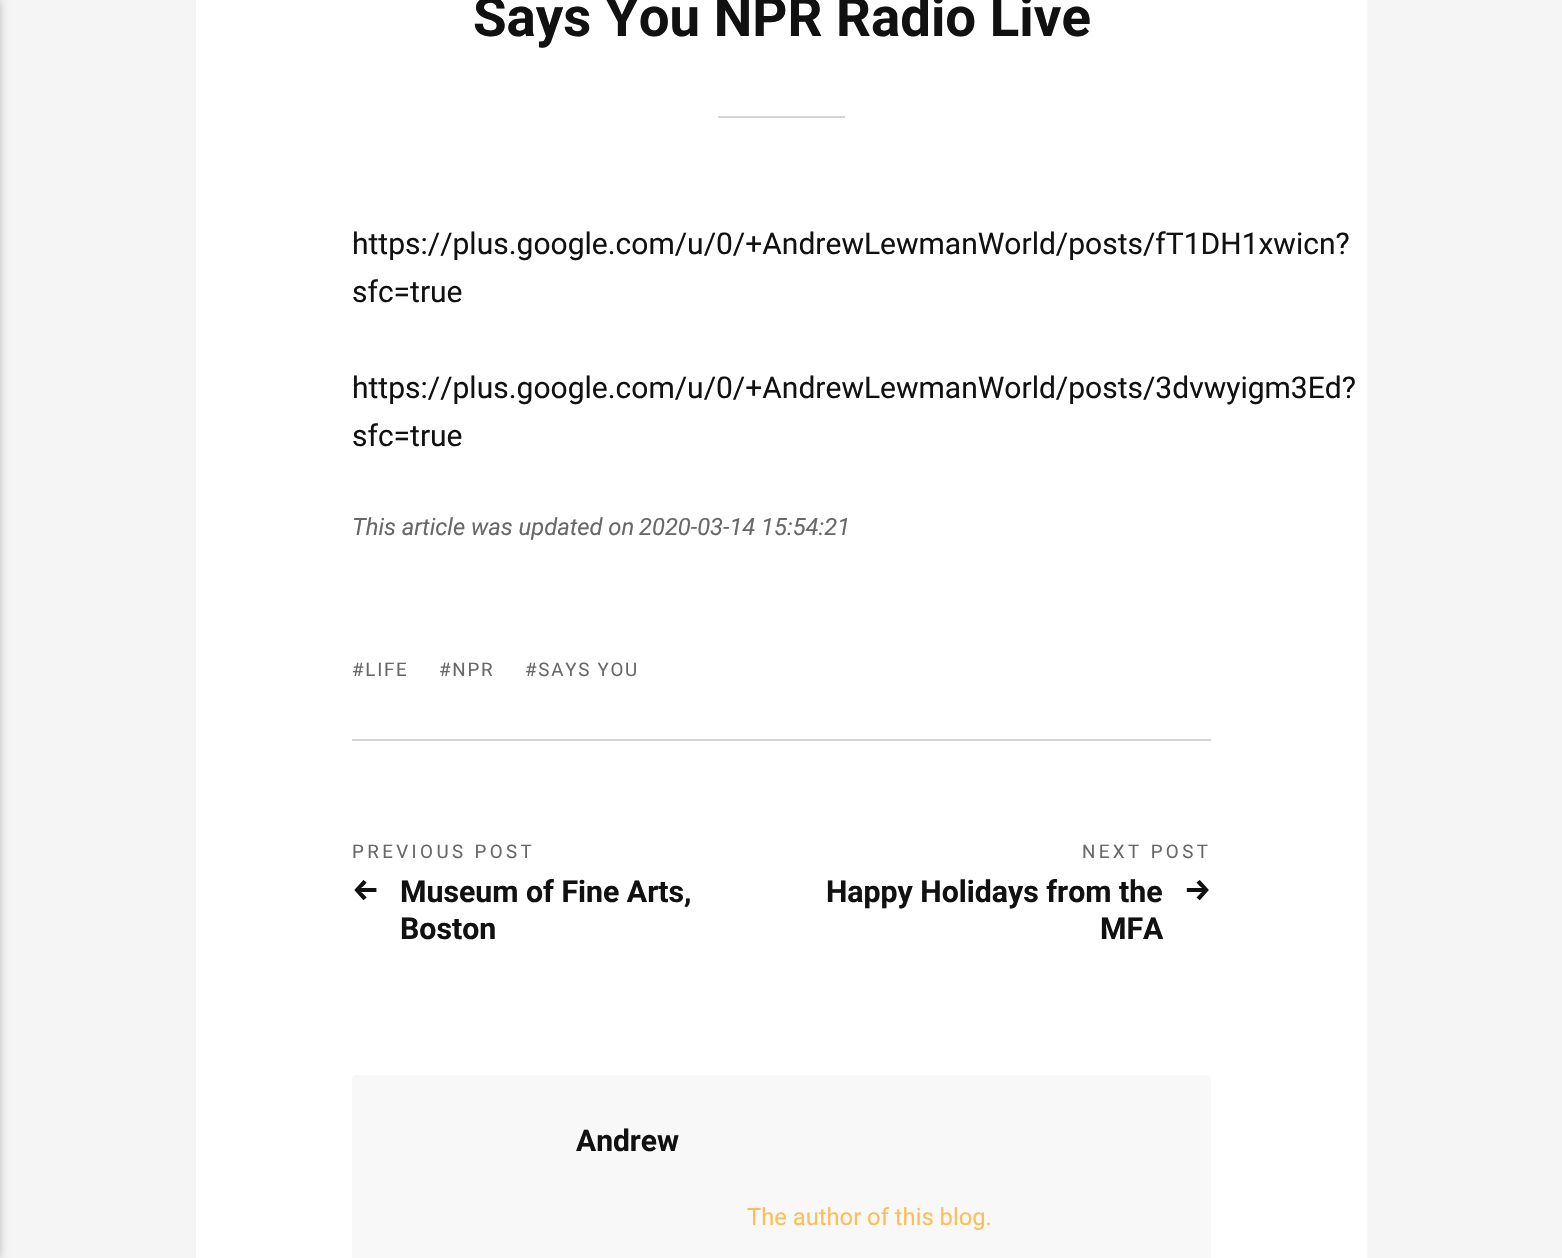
#include "include/core/SkBlurTypes.h"
#include "include/core/SkCanvas.h"
#include "include/core/SkData.h"
#include "include/core/SkFont.h"
#include "include/core/SkFontMgr.h"
#include "include/core/SkImage.h"
#include "include/core/SkMaskFilter.h"
#include "include/core/SkPaint.h"
#include "include/core/SkPathBuilder.h"
#include "include/core/SkTextBlob.h"
#include "include/effects/SkDashPathEffect.h"
#include "include/effects/SkGradientShader.h"
#include "include/utils/SkParsePath.h"

extern sk_sp<SkFontMgr> fontMgr;

void draw(SkCanvas* canvas) {
  SkPaint p;
  p.setAntiAlias(true);
  auto spacedText = [&](const char* s, float x, float y, const SkFont& font, const SkPaint& ink, float letter, float word) {
    std::vector<SkGlyphID> glyphs(font.countText(s, strlen(s), SkTextEncoding::kUTF8));
    std::vector<float> xs(glyphs.size());
    font.textToGlyphs(s, strlen(s), SkTextEncoding::kUTF8, glyphs);
    font.getXPos(glyphs, xs, x);
    float extra = 0;
    for (size_t i = 0; i < glyphs.size(); i++) {
      xs[i] += extra;
      extra += letter + word * (glyphs[i] == font.unicharToGlyph(' '));
    }
    canvas->drawTextBlob(SkTextBlob::MakeFromPosHGlyphs(glyphs, xs, y, font), 0, 0, ink);
  };
  canvas->clear(SkColorSetRGB(245, 245, 245));
  p.setColor(SkColorSetARGB(64, 0, 0, 0));
  p.setMaskFilter(SkMaskFilter::MakeBlur(kNormal_SkBlurStyle, 4.5f));
  canvas->drawRect(SkRect::MakeLTRB(-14, 0, 0, 1258), p);
  p.setMaskFilter(nullptr);
  p.setColor(SK_ColorWHITE);
  canvas->drawRect(SkRect::MakeLTRB(196, 0, 1367, 1258), p);
  p.setColor(SkColorSetRGB(213, 213, 213));
  canvas->drawRect(SkRect::MakeLTRB(718, 116, 845, 118), p);
  canvas->drawRect(SkRect::MakeLTRB(352, 739, 1211, 741), p);
  p.setColor(SkColorSetRGB(248, 248, 248));
  canvas->drawRoundRect(SkRect::MakeLTRB(352, 1075, 1211, 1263), 5, 5, p);
  SkFont font1(fontMgr->matchFamilyStyle("Roboto", SkFontStyle::Bold()), 54.6f);
  font1.setSubpixel(true);
  p.setColor(SkColorSetRGB(17, 17, 17));
  canvas->drawString("Says You NPR Radio Live", 473, 36, font1, p);
  SkFont font2(fontMgr->matchFamilyStyle("Roboto", SkFontStyle::Normal()), 30);
  font2.setSubpixel(true);
  canvas->drawString("https://plus.google.com/u/0/+AndrewLewmanWorld/posts/fT1DH1xwicn?", 352, 254, font2, p);
  canvas->drawString("sfc=true", 352, 302, font2, p);
  canvas->drawString("https://plus.google.com/u/0/+AndrewLewmanWorld/posts/3dvwyigm3Ed?", 352, 398, font2, p);
  canvas->drawString("sfc=true", 352, 446, font2, p);
  SkFont font3(fontMgr->matchFamilyStyle("Roboto", SkFontStyle::Italic()), 23.75f);
  font3.setSubpixel(true);
  p.setColor(SkColorSetRGB(104, 104, 104));
  canvas->drawString("This article was updated on", 352, 535, font3, p);
  canvas->drawString("2020-03-14 15:54:21", 639, 535, font3, p);
  SkFont font4(fontMgr->matchFamilyStyle("Roboto", SkFontStyle::Normal()), 18.75f);
  font4.setSubpixel(true);
  spacedText("#LIFE", 352, 676, font4, p, 1.75f, 0);
  spacedText("#NPR", 439, 676, font4, p, 1.75f, 0);
  spacedText("#SAYS YOU", 525, 676, font4, p, 1.75f, 0);
  spacedText("PREVIOUS POST", 352, 858, font4, p, 3.4f, 0);
  SkFont font5(fontMgr->matchFamilyStyle("Fira Sans", SkFontStyle::Bold()), 30.25f);
  font5.setSubpixel(true);
  p.setColor(SkColorSetRGB(17, 17, 17));
  canvas->drawString("←", 352, 900, font5, p);
  SkFont font6(fontMgr->matchFamilyStyle("Roboto", SkFontStyle::Bold()), 30.25f);
  font6.setSubpixel(true);
  canvas->drawString("Museum of Fine Arts,", 400, 902, font6, p);
  canvas->drawString("Boston", 400, 939, font6, p);
  p.setColor(SkColorSetRGB(104, 104, 104));
  spacedText("NEXT POST", 1082, 858, font4, p, 3.4f, 0);
  p.setColor(SkColorSetRGB(17, 17, 17));
  canvas->drawString("Happy Holidays from the", 826, 902, font6, p);
  canvas->drawString("MFA", 1100, 939, font6, p);
  canvas->drawString("→", 1184, 900, font5, p);
  SkFont font7(fontMgr->matchFamilyStyle("Roboto", SkFontStyle::Bold()), 30);
  font7.setSubpixel(true);
  canvas->drawString("Andrew", 576, 1151, font7, p);
  SkFont font8(fontMgr->matchFamilyStyle("Roboto", SkFontStyle::Normal()), 23.75f);
  font8.setSubpixel(true);
  p.setColor(SkColorSetRGB(255, 189, 89));
  canvas->drawString("The author of this blog.", 747, 1225, font8, p);
}
